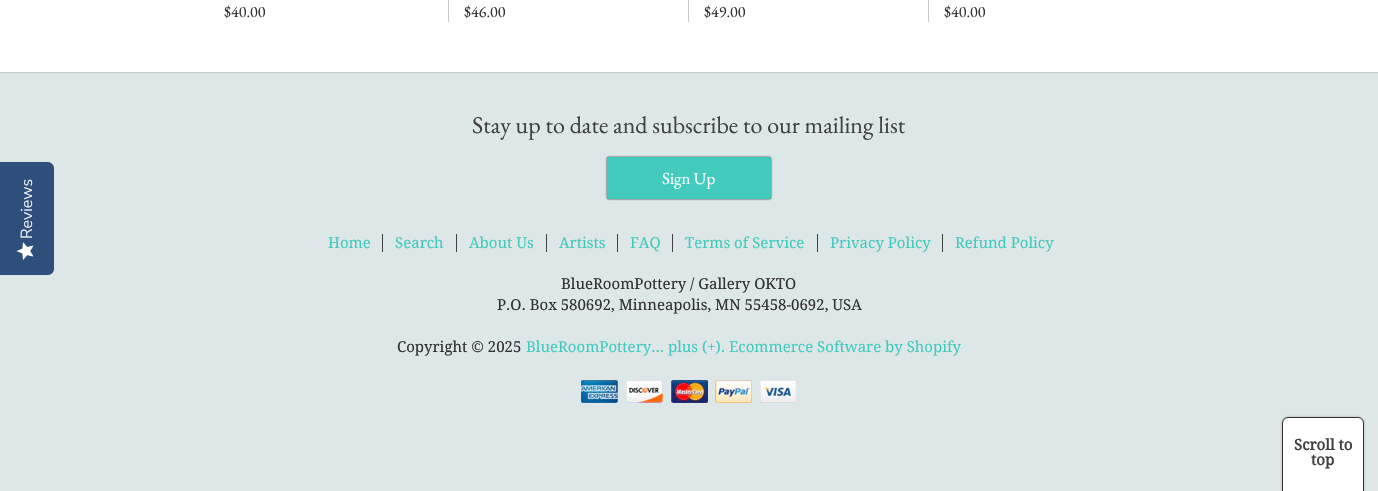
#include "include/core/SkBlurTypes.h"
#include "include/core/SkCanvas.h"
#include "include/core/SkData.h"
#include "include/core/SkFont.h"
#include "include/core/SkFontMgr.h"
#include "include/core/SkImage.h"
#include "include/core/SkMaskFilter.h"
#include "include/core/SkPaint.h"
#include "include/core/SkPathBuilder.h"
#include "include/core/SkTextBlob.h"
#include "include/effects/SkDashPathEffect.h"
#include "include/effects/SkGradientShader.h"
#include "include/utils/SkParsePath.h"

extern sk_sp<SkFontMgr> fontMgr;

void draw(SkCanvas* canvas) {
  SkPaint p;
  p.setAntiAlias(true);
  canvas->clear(SkColorSetRGB(222, 231, 232));
  p.setColor(SK_ColorWHITE);
  canvas->drawRect(SkRect::MakeLTRB(0, 0, 1378, 72), p);
  p.setColor(SkColorSetRGB(196, 201, 197));
  canvas->drawRect(SkRect::MakeLTRB(448, 0, 449, 22), p);
  canvas->drawRect(SkRect::MakeLTRB(688, 0, 689, 22), p);
  canvas->drawRect(SkRect::MakeLTRB(928, 0, 929, 22), p);
  p.setColor(SkColorSetRGB(46, 79, 124));
  canvas->drawPath(SkPathBuilder().moveTo(0, 275).lineTo(0, 162).lineTo(48, 162).cubicTo(51, 162, 54, 165, 54, 168).lineTo(54, 269).cubicTo(54, 272, 51, 275, 48, 275).close().detach(), p);
  canvas->drawImageRect(SkImages::DeferredFromEncodedData(SkData::MakeFromFileName("images/1.png")), SkRect::MakeLTRB(16, 242, 34, 260), SkSamplingOptions());
  p.setColor(SkColorSetRGB(196, 201, 197));
  canvas->drawRect(SkRect::MakeLTRB(0, 72, 1378, 73), p);
  p.setColor(SK_ColorBLACK);
  p.setMaskFilter(SkMaskFilter::MakeBlur(kNormal_SkBlurStyle, 1));
  canvas->drawRoundRect(SkRect::MakeLTRB(607, 157, 771, 199), 2, 2, p);
  p.setMaskFilter(nullptr);
  p.setColor(SkColorSetRGB(66, 202, 189));
  canvas->drawRoundRect(SkRect::MakeLTRB(607, 157, 771, 199), 2, 2, p);
  p.setColor(SkColorSetRGB(64, 64, 64));
  canvas->drawRect(SkRect::MakeLTRB(382, 234, 383, 252), p);
  canvas->drawRect(SkRect::MakeLTRB(456, 234, 457, 252), p);
  canvas->drawRect(SkRect::MakeLTRB(546, 234, 547, 252), p);
  canvas->drawRect(SkRect::MakeLTRB(617, 234, 618, 252), p);
  canvas->drawRect(SkRect::MakeLTRB(672, 234, 673, 252), p);
  canvas->drawRect(SkRect::MakeLTRB(817, 234, 818, 252), p);
  canvas->drawRect(SkRect::MakeLTRB(942, 234, 943, 252), p);
  canvas->drawImageRect(SkImages::DeferredFromEncodedData(SkData::MakeFromFileName("images/2.png")), SkRect::MakeLTRB(581, 380, 618, 403), SkSamplingOptions());
  canvas->drawImageRect(SkImages::DeferredFromEncodedData(SkData::MakeFromFileName("images/3.png")), SkRect::MakeLTRB(626, 380, 663, 403), SkSamplingOptions());
  canvas->drawImageRect(SkImages::DeferredFromEncodedData(SkData::MakeFromFileName("images/4.png")), SkRect::MakeLTRB(671, 380, 708, 403), SkSamplingOptions());
  canvas->drawImageRect(SkImages::DeferredFromEncodedData(SkData::MakeFromFileName("images/5.png")), SkRect::MakeLTRB(715, 380, 752, 403), SkSamplingOptions());
  canvas->drawImageRect(SkImages::DeferredFromEncodedData(SkData::MakeFromFileName("images/6.png")), SkRect::MakeLTRB(760, 380, 796, 403), SkSamplingOptions());
  p.setColor(SkColorSetRGB(85, 85, 85));
  p.setMaskFilter(SkMaskFilter::MakeBlur(kNormal_SkBlurStyle, 1.5f));
  canvas->drawRoundRect(SkRect::MakeLTRB(1283, 418, 1363, 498), 5, 5, p);
  p.setMaskFilter(nullptr);
  p.setColor(SK_ColorWHITE);
  canvas->drawPath(SkPathBuilder().moveTo(1288, 417.5f).lineTo(1358, 417.5f).cubicTo(1361, 417.5f, 1363.5f, 420, 1363.5f, 423).lineTo(1363.5f, 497.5f).lineTo(1282.5f, 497.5f).lineTo(1282.5f, 423).cubicTo(1282.5f, 420, 1285, 417.5f, 1288, 417.5f).close().detach(), p);
  p.setStyle(SkPaint::kStroke_Style);
  p.setStrokeWidth(1);
  p.setColor(SkColorSetRGB(51, 51, 51));
  canvas->drawPath(SkPathBuilder().moveTo(1288, 417.5f).lineTo(1358, 417.5f).cubicTo(1361, 417.5f, 1363.5f, 420, 1363.5f, 423).lineTo(1363.5f, 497.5f).lineTo(1282.5f, 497.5f).lineTo(1282.5f, 423).cubicTo(1282.5f, 420, 1285, 417.5f, 1288, 417.5f).close().detach(), p);
  SkFont font1(fontMgr->matchFamilyStyle("EB Garamond", SkFontStyle::Normal()), 16);
  font1.setSubpixel(true);
  p.setStyle(SkPaint::kFill_Style);
  p.setColor(SkColorSetRGB(48, 48, 48));
  canvas->drawString("$40.00", 224, 17, font1, p);
  canvas->drawString("$46.00", 464, 17, font1, p);
  canvas->drawString("$49.00", 704, 17, font1, p);
  canvas->drawString("$40.00", 944, 17, font1, p);
  SkFont font2(fontMgr->matchFamilyStyle("Nunito Sans", SkFontStyle(300, SkFontStyle::kNormal_Width, SkFontStyle::kUpright_Slant)), 16);
  font2.setSubpixel(true);
  p.setColor(SK_ColorWHITE);
  canvas->save();
  canvas->rotate(-90, 32, 239);
  canvas->drawString("Reviews", 32, 239, font2, p);
  canvas->restore();
  SkFont font3(fontMgr->matchFamilyStyle("EB Garamond", SkFontStyle::Normal()), 24);
  font3.setSubpixel(true);
  p.setColor(SkColorSetRGB(64, 64, 64));
  canvas->drawString("Stay up to date and subscribe to our mailing list", 472, 133, font3, p);
  SkFont font4(fontMgr->matchFamilyStyle("EB Garamond", SkFontStyle::Normal()), 17);
  font4.setSubpixel(true);
  p.setColor(SK_ColorWHITE);
  canvas->drawString("Sign Up", 662, 184, font4, p);
  SkFont font5(fontMgr->matchFamilyStyle("Droid Serif", SkFontStyle::Normal()), 15);
  font5.setSubpixel(true);
  p.setColor(SkColorSetRGB(66, 202, 189));
  canvas->drawString("Home", 328, 248, font5, p);
  canvas->drawString("Search", 395, 248, font5, p);
  canvas->drawString("About Us", 469, 248, font5, p);
  canvas->drawString("Artists", 559, 248, font5, p);
  canvas->drawString("FAQ", 630, 248, font5, p);
  canvas->drawString("Terms of Service", 685, 248, font5, p);
  canvas->drawString("Privacy Policy", 830, 248, font5, p);
  canvas->drawString("Refund Policy", 955, 248, font5, p);
  p.setColor(SkColorSetRGB(48, 48, 48));
  canvas->drawString("BlueRoomPottery / Gallery OKTO", 561, 289, font5, p);
  canvas->drawString("P.O. Box 580692, Minneapolis, MN 55458-0692, USA", 497, 310, font5, p);
  canvas->drawString("Copyright © 2025", 397, 352, font5, p);
  p.setColor(SkColorSetRGB(66, 202, 189));
  canvas->drawString("BlueRoomPottery... plus (+). Ecommerce Software by Shopify", 526, 352, font5, p);
  SkFont font6(fontMgr->matchFamilyStyle("Droid Serif", SkFontStyle::Bold()), 15);
  font6.setSubpixel(true);
  p.setColor(SkColorSetRGB(64, 64, 64));
  canvas->drawString("Scroll to", 1294, 450, font6, p);
  canvas->drawString("top", 1311, 465, font6, p);
}
